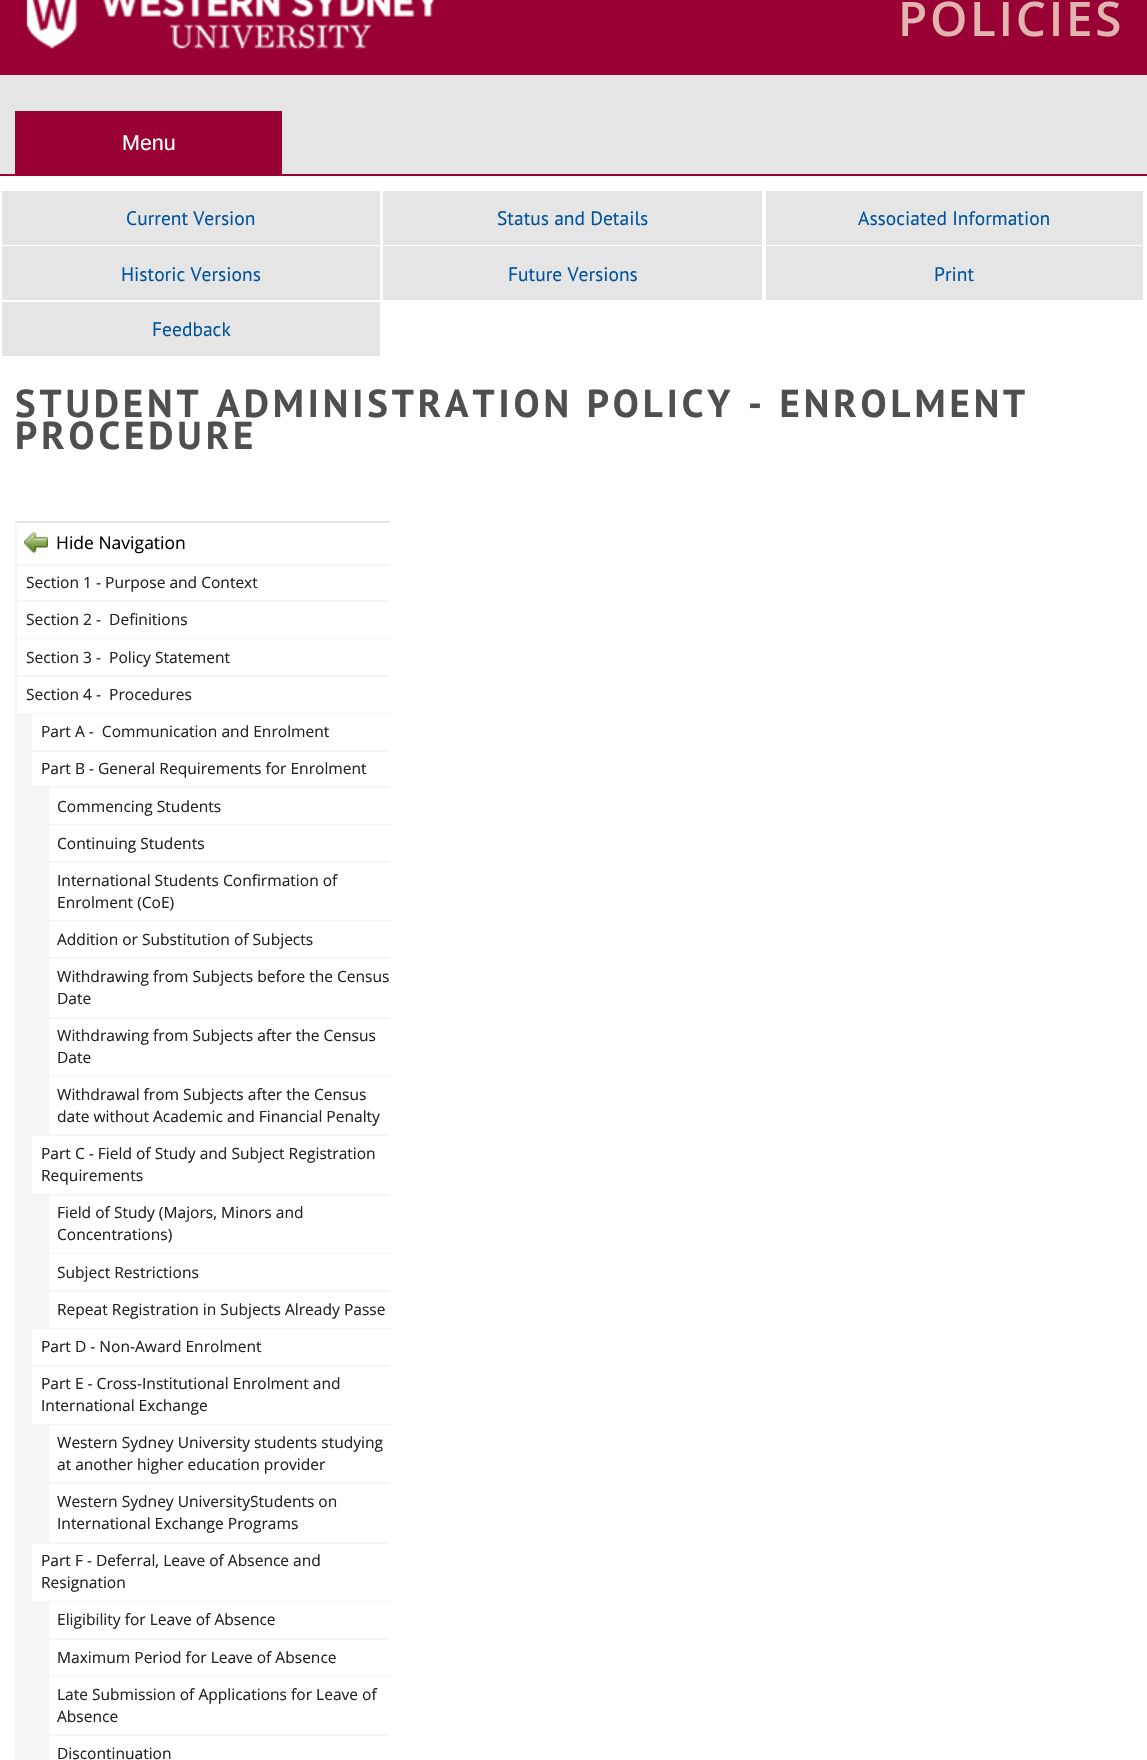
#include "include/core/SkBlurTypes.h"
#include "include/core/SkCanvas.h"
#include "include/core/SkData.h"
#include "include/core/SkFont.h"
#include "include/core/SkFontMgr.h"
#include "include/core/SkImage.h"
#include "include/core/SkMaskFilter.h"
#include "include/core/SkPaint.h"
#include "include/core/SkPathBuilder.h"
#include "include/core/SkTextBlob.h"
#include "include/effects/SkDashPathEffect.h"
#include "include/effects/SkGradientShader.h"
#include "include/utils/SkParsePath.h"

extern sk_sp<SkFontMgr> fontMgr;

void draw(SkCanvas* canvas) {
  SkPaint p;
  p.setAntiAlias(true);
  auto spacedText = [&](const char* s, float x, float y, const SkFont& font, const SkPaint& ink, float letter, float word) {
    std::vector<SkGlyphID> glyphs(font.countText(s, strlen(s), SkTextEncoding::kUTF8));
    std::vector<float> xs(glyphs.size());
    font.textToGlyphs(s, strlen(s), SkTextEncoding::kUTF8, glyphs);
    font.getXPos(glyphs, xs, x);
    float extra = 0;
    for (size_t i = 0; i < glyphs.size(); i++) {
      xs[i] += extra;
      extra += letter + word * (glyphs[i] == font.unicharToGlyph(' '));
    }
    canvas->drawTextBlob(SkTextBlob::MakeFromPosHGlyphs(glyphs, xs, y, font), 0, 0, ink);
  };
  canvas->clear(SkColorSetRGB(229, 229, 229));
  p.setColor(SkColorSetRGB(153, 0, 51));
  canvas->drawRect(SkRect::MakeLTRB(0, 0, 1147, 75), p);
  canvas->drawImageRect(SkImages::DeferredFromEncodedData(SkData::MakeFromFileName("images/1.png")), SkRect::MakeLTRB(26, 0, 435, 49), SkSamplingOptions());
  canvas->drawRect(SkRect::MakeLTRB(0, 174, 1147, 176), p);
  canvas->drawRect(SkRect::MakeLTRB(15, 111, 282, 174), p);
  p.setColor(SK_ColorWHITE);
  canvas->drawRect(SkRect::MakeLTRB(0, 176, 1147, 1760), p);
  p.setColor(SkColorSetRGB(229, 229, 229));
  canvas->drawRect(SkRect::MakeLTRB(2, 191, 380, 245), p);
  canvas->drawRect(SkRect::MakeLTRB(383, 191, 762, 245), p);
  canvas->drawRect(SkRect::MakeLTRB(766, 191, 1143, 245), p);
  canvas->drawRect(SkRect::MakeLTRB(2, 246, 380, 300), p);
  canvas->drawRect(SkRect::MakeLTRB(383, 246, 762, 300), p);
  canvas->drawRect(SkRect::MakeLTRB(766, 246, 1143, 300), p);
  canvas->drawRect(SkRect::MakeLTRB(2, 302, 380, 356), p);
  canvas->drawRect(SkRect::MakeLTRB(15, 521, 390, 523), p);
  canvas->drawImageRect(SkImages::DeferredFromEncodedData(SkData::MakeFromFileName("images/2.png")), SkRect::MakeLTRB(24, 531, 48, 554), SkSamplingOptions());
  p.setColor(SkColorSetRGB(245, 245, 245));
  canvas->drawRect(SkRect::MakeLTRB(15, 564, 390, 566), p);
  canvas->drawRect(SkRect::MakeLTRB(15, 522, 17, 566), p);
  canvas->drawRect(SkRect::MakeLTRB(15, 715, 47, 1760), p);
  canvas->drawRect(SkRect::MakeLTRB(15, 600, 390, 602), p);
  canvas->drawRect(SkRect::MakeLTRB(15, 566, 17, 602), p);
  canvas->drawRect(SkRect::MakeLTRB(15, 638, 390, 639), p);
  canvas->drawRect(SkRect::MakeLTRB(15, 602, 17, 639), p);
  canvas->drawRect(SkRect::MakeLTRB(15, 675, 390, 677), p);
  canvas->drawRect(SkRect::MakeLTRB(15, 639, 17, 677), p);
  canvas->drawRect(SkRect::MakeLTRB(15, 713, 390, 715), p);
  canvas->drawRect(SkRect::MakeLTRB(15, 677, 17, 714), p);
  p.setColor(SK_ColorWHITE);
  canvas->drawRect(SkRect::MakeLTRB(32, 714, 390, 750), p);
  p.setColor(SkColorSetRGB(245, 245, 245));
  canvas->drawRect(SkRect::MakeLTRB(47, 750, 390, 752), p);
  p.setColor(SK_ColorWHITE);
  canvas->drawRect(SkRect::MakeLTRB(32, 752, 47, 786), p);
  p.setColor(SkColorSetRGB(245, 245, 245));
  canvas->drawRect(SkRect::MakeLTRB(47, 786, 390, 788), p);
  canvas->drawRect(SkRect::MakeLTRB(47, 824, 390, 825), p);
  canvas->drawRect(SkRect::MakeLTRB(47, 788, 49, 825), p);
  canvas->drawRect(SkRect::MakeLTRB(47, 861, 390, 863), p);
  canvas->drawRect(SkRect::MakeLTRB(47, 825, 49, 863), p);
  canvas->drawRect(SkRect::MakeLTRB(47, 920, 390, 921), p);
  canvas->drawRect(SkRect::MakeLTRB(47, 863, 49, 921), p);
  canvas->drawRect(SkRect::MakeLTRB(47, 957, 390, 959), p);
  canvas->drawRect(SkRect::MakeLTRB(47, 921, 49, 959), p);
  canvas->drawRect(SkRect::MakeLTRB(47, 1017, 390, 1019), p);
  canvas->drawRect(SkRect::MakeLTRB(47, 959, 49, 1019), p);
  canvas->drawRect(SkRect::MakeLTRB(47, 1076, 390, 1077), p);
  canvas->drawRect(SkRect::MakeLTRB(47, 1019, 49, 1077), p);
  canvas->drawRect(SkRect::MakeLTRB(47, 1134, 390, 1136), p);
  canvas->drawRect(SkRect::MakeLTRB(47, 1077, 49, 1136), p);
  p.setColor(SK_ColorWHITE);
  canvas->drawRect(SkRect::MakeLTRB(32, 1136, 47, 1194), p);
  p.setColor(SkColorSetRGB(245, 245, 245));
  canvas->drawRect(SkRect::MakeLTRB(47, 1194, 390, 1196), p);
  canvas->drawRect(SkRect::MakeLTRB(47, 1253, 390, 1254), p);
  canvas->drawRect(SkRect::MakeLTRB(47, 1196, 49, 1254), p);
  canvas->drawRect(SkRect::MakeLTRB(47, 1290, 390, 1292), p);
  canvas->drawRect(SkRect::MakeLTRB(47, 1254, 49, 1292), p);
  canvas->drawRect(SkRect::MakeLTRB(47, 1328, 390, 1329), p);
  canvas->drawRect(SkRect::MakeLTRB(47, 1292, 49, 1329), p);
  p.setColor(SK_ColorWHITE);
  canvas->drawRect(SkRect::MakeLTRB(32, 1329, 47, 1365), p);
  p.setColor(SkColorSetRGB(245, 245, 245));
  canvas->drawRect(SkRect::MakeLTRB(47, 1365, 390, 1367), p);
  p.setColor(SK_ColorWHITE);
  canvas->drawRect(SkRect::MakeLTRB(32, 1367, 47, 1424), p);
  p.setColor(SkColorSetRGB(245, 245, 245));
  canvas->drawRect(SkRect::MakeLTRB(47, 1424, 390, 1426), p);
  p.setColor(SK_ColorWHITE);
  canvas->drawRect(SkRect::MakeLTRB(49, 1425, 390, 1426), p);
  p.setColor(SkColorSetRGB(245, 245, 245));
  canvas->drawRect(SkRect::MakeLTRB(47, 1482, 390, 1484), p);
  canvas->drawRect(SkRect::MakeLTRB(47, 1425, 49, 1484), p);
  canvas->drawRect(SkRect::MakeLTRB(47, 1542, 390, 1544), p);
  canvas->drawRect(SkRect::MakeLTRB(47, 1484, 49, 1544), p);
  p.setColor(SK_ColorWHITE);
  canvas->drawRect(SkRect::MakeLTRB(32, 1544, 47, 1601), p);
  p.setColor(SkColorSetRGB(245, 245, 245));
  canvas->drawRect(SkRect::MakeLTRB(47, 1601, 390, 1603), p);
  p.setColor(SK_ColorWHITE);
  canvas->drawRect(SkRect::MakeLTRB(49, 1602, 390, 1603), p);
  p.setColor(SkColorSetRGB(245, 245, 245));
  canvas->drawRect(SkRect::MakeLTRB(47, 1638, 390, 1640), p);
  canvas->drawRect(SkRect::MakeLTRB(47, 1602, 49, 1640), p);
  canvas->drawRect(SkRect::MakeLTRB(47, 1676, 390, 1677), p);
  canvas->drawRect(SkRect::MakeLTRB(47, 1640, 49, 1677), p);
  canvas->drawRect(SkRect::MakeLTRB(47, 1734, 390, 1736), p);
  canvas->drawRect(SkRect::MakeLTRB(47, 1677, 49, 1760), p);
  SkFont font1(fontMgr->matchFamilyStyle("Open Sans", SkFontStyle(600, SkFontStyle::kNormal_Width, SkFontStyle::kUpright_Slant)), 47.5f);
  font1.setSubpixel(true);
  p.setColor(SkColorSetRGB(225, 180, 175));
  spacedText("POLICIES", 898, 36, font1, p, 2.75f, 0);
  SkFont font2(fontMgr->matchFamilyStyle("Liberation Sans", SkFontStyle::Normal()), 21.5f);
  font2.setSubpixel(true);
  p.setColor(SK_ColorWHITE);
  canvas->drawString("Menu", 122, 150, font2, p);
  SkFont font3(fontMgr->matchFamilyStyle("PT Sans", SkFontStyle::Normal()), 19.5f);
  font3.setSubpixel(true);
  p.setColor(SkColorSetRGB(0, 83, 159));
  canvas->drawString("Current Version", 126, 225, font3, p);
  canvas->drawString("Status and Details", 497, 225, font3, p);
  canvas->drawString("Associated Information", 858, 225, font3, p);
  canvas->drawString("Historic Versions", 121, 281, font3, p);
  canvas->drawString("Future Versions", 508, 281, font3, p);
  canvas->drawString("Print", 934, 281, font3, p);
  canvas->drawString("Feedback", 152, 336, font3, p);
  SkFont font4(fontMgr->matchFamilyStyle("PT Sans", SkFontStyle::Bold()), 38.9f);
  font4.setSubpixel(true);
  p.setColor(SkColorSetRGB(79, 79, 79));
  spacedText("STUDENT ADMINISTRATION POLICY - ENROLMENT", 15, 417, font4, p, 3.9f, 0);
  spacedText("PROCEDURE", 15, 449, font4, p, 3.9f, 0);
  SkFont font5(fontMgr->matchFamilyStyle("Open Sans", SkFontStyle::Normal()), 17.5f);
  font5.setSubpixel(true);
  p.setColor(SK_ColorBLACK);
  canvas->drawString("Hide Navigation", 56, 549, font5, p);
  SkFont font6(fontMgr->matchFamilyStyle("Open Sans", SkFontStyle::Normal()), 15.55f);
  font6.setSubpixel(true);
  p.setColor(SkColorSetRGB(34, 34, 34));
  canvas->drawString("Section 1 - Purpose and Context", 26, 588, font6, p);
  canvas->drawString("Section 2 -  Definitions", 26, 625, font6, p);
  canvas->drawString("Section 3 -  Policy Statement", 26, 663, font6, p);
  canvas->drawString("Section 4 -  Procedures", 26, 700, font6, p);
  canvas->drawString("Part A -  Communication and Enrolment", 41, 737, font6, p);
  canvas->drawString("Part B - General Requirements for Enrolment", 41, 774, font6, p);
  canvas->drawString("Commencing Students", 57, 812, font6, p);
  canvas->drawString("Continuing Students", 57, 849, font6, p);
  canvas->drawString("International Students Confirmation of", 57, 886, font6, p);
  canvas->drawString("Enrolment (CoE)", 57, 908, font6, p);
  canvas->drawString("Addition or Substitution of Subjects", 57, 945, font6, p);
  canvas->drawString("Withdrawing from Subjects before the Census", 57, 982, font6, p);
  canvas->drawString("Date", 57, 1004, font6, p);
  canvas->drawString("Withdrawing from Subjects after the Census", 57, 1041, font6, p);
  canvas->drawString("Date", 57, 1063, font6, p);
  canvas->drawString("Withdrawal from Subjects after the Census", 57, 1100, font6, p);
  canvas->drawString("date without Academic and Financial Penalty", 57, 1122, font6, p);
  canvas->drawString("Part C - Field of Study and Subject Registration", 41, 1159, font6, p);
  canvas->drawString("Requirements", 41, 1181, font6, p);
  canvas->drawString("Field of Study (Majors, Minors and", 57, 1218, font6, p);
  canvas->drawString("Concentrations)", 57, 1240, font6, p);
  canvas->drawString("Subject Restrictions", 57, 1278, font6, p);
  canvas->drawString("Repeat Registration in Subjects Already Passe", 57, 1315, font6, p);
  canvas->drawString("Part D - Non-Award Enrolment", 41, 1352, font6, p);
  canvas->drawString("Part E - Cross-Institutional Enrolment and", 41, 1389, font6, p);
  canvas->drawString("International Exchange", 41, 1411, font6, p);
  canvas->drawString("Western Sydney University students studying", 57, 1448, font6, p);
  canvas->drawString("at another higher education provider", 57, 1470, font6, p);
  canvas->drawString("Western Sydney UniversityStudents on", 57, 1507, font6, p);
  canvas->drawString("International Exchange Programs", 57, 1529, font6, p);
  canvas->drawString("Part F - Deferral, Leave of Absence and", 41, 1566, font6, p);
  canvas->drawString("Resignation", 41, 1588, font6, p);
  canvas->drawString("Eligibility for Leave of Absence", 57, 1625, font6, p);
  canvas->drawString("Maximum Period for Leave of Absence", 57, 1663, font6, p);
  canvas->drawString("Late Submission of Applications for Leave of", 57, 1700, font6, p);
  canvas->drawString("Absence", 57, 1722, font6, p);
  canvas->drawString("Discontinuation", 57, 1759, font6, p);
}
